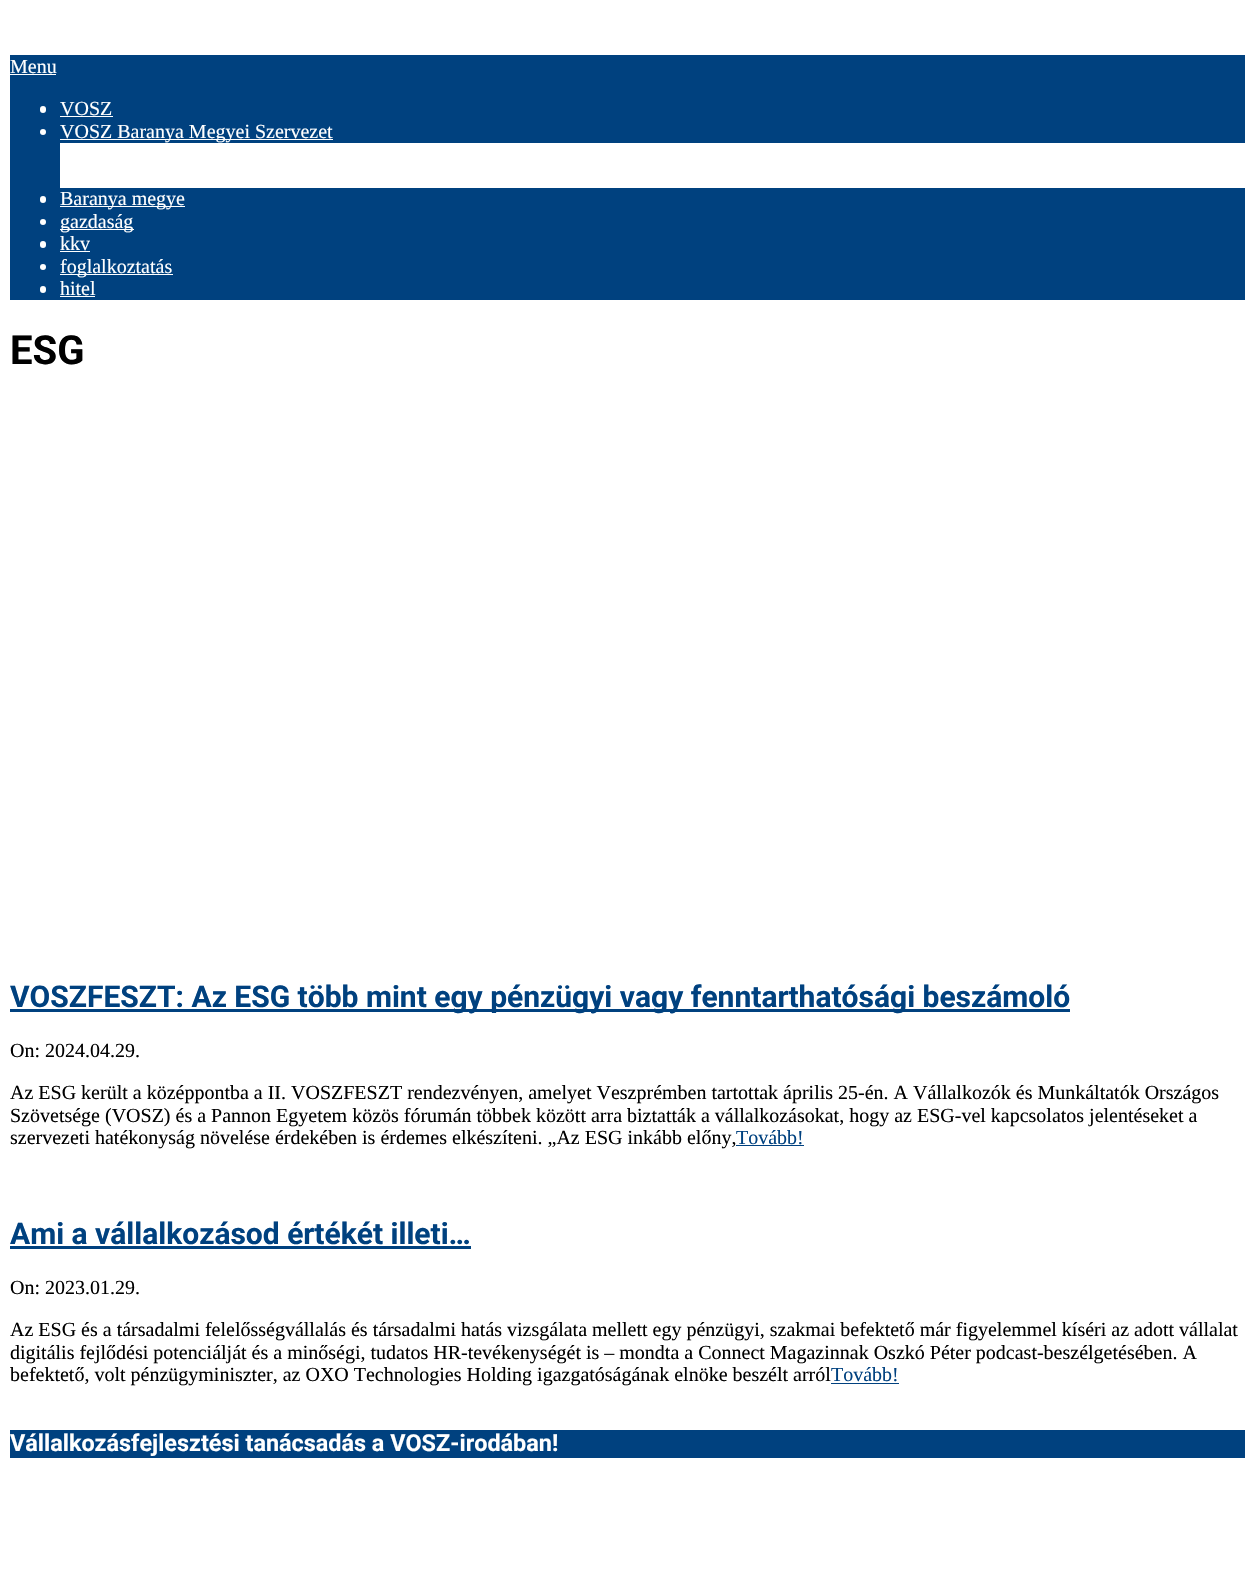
#include "include/core/SkBlurTypes.h"
#include "include/core/SkCanvas.h"
#include "include/core/SkData.h"
#include "include/core/SkFont.h"
#include "include/core/SkFontMgr.h"
#include "include/core/SkImage.h"
#include "include/core/SkMaskFilter.h"
#include "include/core/SkPaint.h"
#include "include/core/SkPathBuilder.h"
#include "include/core/SkTextBlob.h"
#include "include/effects/SkDashPathEffect.h"
#include "include/effects/SkGradientShader.h"
#include "include/utils/SkParsePath.h"

extern sk_sp<SkFontMgr> fontMgr;

void draw(SkCanvas* canvas) {
  SkPaint p;
  p.setAntiAlias(true);
  canvas->clear(SK_ColorWHITE);
  p.setColor(SkColorSetRGB(0, 65, 127));
  canvas->drawRect(SkRect::MakeLTRB(10, 55, 1245, 300), p);
  p.setColor(SK_ColorWHITE);
  canvas->drawRect(SkRect::MakeLTRB(10, 74, 56, 75), p);
  canvas->drawRoundRect(SkRect::MakeLTRB(40, 106, 46, 113), 3, 3, p);
  canvas->drawRect(SkRect::MakeLTRB(60, 116, 113, 117), p);
  canvas->drawCircle(43, 132, 3, p);
  canvas->drawRect(SkRect::MakeLTRB(60, 139, 333, 140), p);
  canvas->drawRect(SkRect::MakeLTRB(60, 143, 1245, 188), p);
  canvas->drawRoundRect(SkRect::MakeLTRB(40, 196, 46, 203), 3, 3, p);
  canvas->drawRect(SkRect::MakeLTRB(60, 206, 185, 207), p);
  canvas->drawCircle(43, 222, 3, p);
  canvas->drawRect(SkRect::MakeLTRB(60, 229, 134, 230), p);
  canvas->drawRoundRect(SkRect::MakeLTRB(40, 241, 46, 248), 3, 3, p);
  canvas->drawRect(SkRect::MakeLTRB(60, 251, 90, 252), p);
  canvas->drawCircle(43, 267, 3, p);
  canvas->drawRect(SkRect::MakeLTRB(60, 274, 173, 275), p);
  canvas->drawRoundRect(SkRect::MakeLTRB(40, 286, 46, 293), 3, 3, p);
  canvas->drawRect(SkRect::MakeLTRB(60, 296, 95, 297), p);
  p.setColor(SkColorSetRGB(0, 65, 127));
  canvas->drawRect(SkRect::MakeLTRB(10, 1009, 1070, 1012), p);
  canvas->drawRect(SkRect::MakeLTRB(736, 1145, 804, 1146), p);
  canvas->drawRect(SkRect::MakeLTRB(10, 1246, 471, 1249), p);
  canvas->drawRect(SkRect::MakeLTRB(831, 1383, 899, 1384), p);
  canvas->drawRect(SkRect::MakeLTRB(10, 1430, 1245, 1458), p);
  SkFont font1(fontMgr->matchFamilyStyle("Liberation Serif", SkFontStyle::Normal()), 20);
  font1.setSubpixel(true);
  p.setColor(SK_ColorWHITE);
  canvas->drawString("Menu", 10, 73, font1, p);
  canvas->drawString("VOSZ", 60, 115, font1, p);
  canvas->drawString("VOSZ Baranya Megyei Szervezet", 60, 138, font1, p);
  canvas->drawString("Baranya megye", 60, 205, font1, p);
  canvas->drawString("gazdaság", 60, 228, font1, p);
  canvas->drawString("kkv", 60, 250, font1, p);
  canvas->drawString("foglalkoztatás", 60, 273, font1, p);
  canvas->drawString("hitel", 60, 295, font1, p);
  SkFont font2(fontMgr->matchFamilyStyle("Roboto", SkFontStyle::Bold()), 40);
  font2.setSubpixel(true);
  p.setColor(SK_ColorBLACK);
  canvas->drawString("ESG", 10, 364, font2, p);
  SkFont font3(fontMgr->matchFamilyStyle("Roboto", SkFontStyle::Bold()), 30);
  font3.setSubpixel(true);
  p.setColor(SkColorSetRGB(0, 65, 127));
  canvas->drawString("VOSZFESZT: Az ESG több mint egy pénzügyi vagy fenntarthatósági beszámoló", 10, 1007, font3, p);
  p.setColor(SK_ColorBLACK);
  canvas->drawString("On: 2024.04.29.", 10, 1057, font1, p);
  canvas->drawString("Az ESG került a középpontba a II. VOSZFESZT rendezvényen, amelyet Veszprémben tartottak április 25-én. A Vállalkozók és Munkáltatók Országos", 10, 1099, font1, p);
  canvas->drawString("Szövetsége (VOSZ) és a Pannon Egyetem közös fórumán többek között arra biztatták a vállalkozásokat, hogy az ESG-vel kapcsolatos jelentéseket a", 10, 1122, font1, p);
  canvas->drawString("szervezeti hatékonyság növelése érdekében is érdemes elkészíteni. „Az ESG inkább előny,", 10, 1144, font1, p);
  p.setColor(SkColorSetRGB(0, 65, 127));
  canvas->drawString("Tovább!", 736, 1144, font1, p);
  canvas->drawString("Ami a vállalkozásod értékét illeti…", 10, 1244, font3, p);
  p.setColor(SK_ColorBLACK);
  canvas->drawString("On: 2023.01.29.", 10, 1294, font1, p);
  canvas->drawString("Az ESG és a társadalmi felelősségvállalás és társadalmi hatás vizsgálata mellett egy pénzügyi, szakmai befektető már figyelemmel kíséri az adott vállalat", 10, 1336, font1, p);
  canvas->drawString("digitális fejlődési potenciálját és a minőségi, tudatos HR-tevékenységét is – mondta a Connect Magazinnak Oszkó Péter podcast-beszélgetésében. A", 10, 1359, font1, p);
  canvas->drawString("befektető, volt pénzügyminiszter, az OXO Technologies Holding igazgatóságának elnöke beszélt arról", 10, 1381, font1, p);
  p.setColor(SkColorSetRGB(0, 65, 127));
  canvas->drawString("Tovább!", 831, 1381, font1, p);
  SkFont font4(fontMgr->matchFamilyStyle("Roboto", SkFontStyle::Bold()), 23.4f);
  font4.setSubpixel(true);
  p.setColor(SK_ColorWHITE);
  canvas->drawString("Vállalkozásfejlesztési tanácsadás a VOSZ-irodában!", 10, 1451, font4, p);
}
